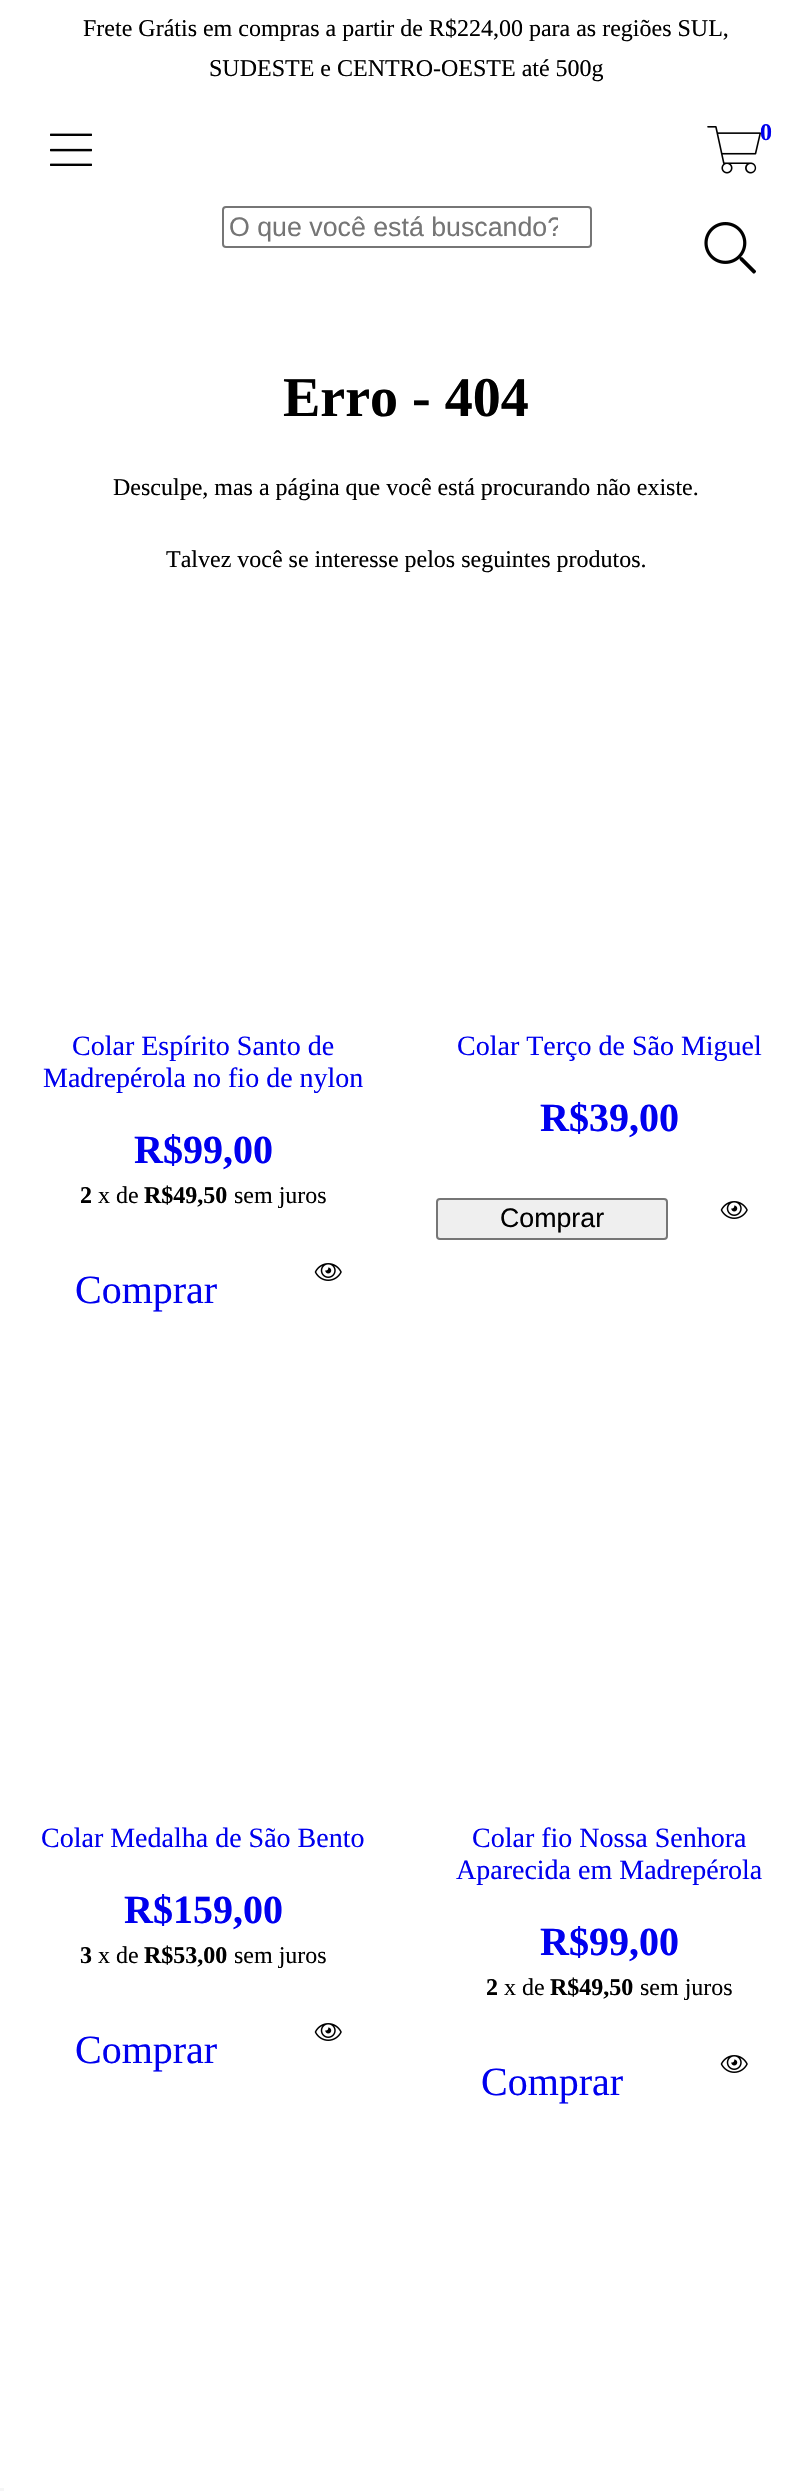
#include "include/core/SkBlurTypes.h"
#include "include/core/SkCanvas.h"
#include "include/core/SkData.h"
#include "include/core/SkFont.h"
#include "include/core/SkFontMgr.h"
#include "include/core/SkImage.h"
#include "include/core/SkMaskFilter.h"
#include "include/core/SkPaint.h"
#include "include/core/SkPathBuilder.h"
#include "include/core/SkTextBlob.h"
#include "include/effects/SkDashPathEffect.h"
#include "include/effects/SkGradientShader.h"
#include "include/utils/SkParsePath.h"

extern sk_sp<SkFontMgr> fontMgr;

void draw(SkCanvas* canvas) {
  SkPaint p;
  p.setAntiAlias(true);
  canvas->clear(SK_ColorWHITE);
  canvas->drawImageRect(SkImages::DeferredFromEncodedData(SkData::MakeFromFileName("images/1.png")), SkRect::MakeLTRB(50, 133, 92, 166), SkSamplingOptions());
  canvas->drawImageRect(SkImages::DeferredFromEncodedData(SkData::MakeFromFileName("images/2.png")), SkRect::MakeLTRB(707, 126, 761, 174), SkSamplingOptions());
  p.setStyle(SkPaint::kStroke_Style);
  p.setStrokeWidth(2);
  p.setColor(SkColorSetRGB(118, 118, 118));
  canvas->drawRoundRect(SkRect::MakeLTRB(223, 207, 591, 247), 3, 3, p);
  canvas->drawImageRect(SkImages::DeferredFromEncodedData(SkData::MakeFromFileName("images/3.png")), SkRect::MakeLTRB(704, 222, 756, 274), SkSamplingOptions());
  canvas->drawImageRect(SkImages::DeferredFromEncodedData(SkData::MakeFromFileName("images/4.png")), SkRect::MakeLTRB(314, 1263, 342, 1281), SkSamplingOptions());
  p.setStyle(SkPaint::kFill_Style);
  p.setColor(SkColorSetRGB(239, 239, 239));
  canvas->drawRoundRect(SkRect::MakeLTRB(437, 1199, 667, 1239), 3, 3, p);
  p.setStyle(SkPaint::kStroke_Style);
  p.setColor(SkColorSetRGB(118, 118, 118));
  canvas->drawRoundRect(SkRect::MakeLTRB(437, 1199, 667, 1239), 3, 3, p);
  canvas->drawImageRect(SkImages::DeferredFromEncodedData(SkData::MakeFromFileName("images/4.png")), SkRect::MakeLTRB(720, 1201, 748, 1219), SkSamplingOptions());
  canvas->drawImageRect(SkImages::DeferredFromEncodedData(SkData::MakeFromFileName("images/4.png")), SkRect::MakeLTRB(314, 2023, 342, 2041), SkSamplingOptions());
  canvas->drawImageRect(SkImages::DeferredFromEncodedData(SkData::MakeFromFileName("images/4.png")), SkRect::MakeLTRB(720, 2055, 748, 2073), SkSamplingOptions());
  p.setStyle(SkPaint::kFill_Style);
  p.setColor(SkColorSetRGB(245, 245, 245));
  canvas->drawRect(SkRect::MakeLTRB(0, 2488, 4, 2491), p);
  SkFont font1(fontMgr->matchFamilyStyle("Liberation Serif", SkFontStyle::Normal()), 24);
  font1.setSubpixel(true);
  p.setColor(SK_ColorBLACK);
  canvas->drawString("Frete Grátis em compras a partir de R$224,00 para as regiões SUL,", 83, 36, font1, p);
  canvas->drawString("SUDESTE e CENTRO-OESTE até 500g", 209, 76, font1, p);
  SkFont font2(fontMgr->matchFamilyStyle("Liberation Serif", SkFontStyle::Bold()), 24);
  font2.setSubpixel(true);
  p.setColor(SkColorSetRGB(0, 0, 238));
  canvas->drawString("0", 760, 140, font2, p);
  canvas->save();
  canvas->clipRect(SkRect::MakeLTRB(230, 212, 558, 242));
  SkFont font3(fontMgr->matchFamilyStyle("Liberation Sans", SkFontStyle::Normal()), 26.75f);
  font3.setSubpixel(true);
  p.setColor(SkColorSetRGB(117, 117, 117));
  canvas->drawString("O que você está buscando?", 229, 236, font3, p);
  canvas->restore();
  SkFont font4(fontMgr->matchFamilyStyle("Liberation Serif", SkFontStyle::Bold()), 56);
  font4.setSubpixel(true);
  p.setColor(SK_ColorBLACK);
  canvas->drawString("Erro - 404", 283, 416, font4, p);
  canvas->drawString("Desculpe, mas a página que você está procurando não existe.", 113, 495, font1, p);
  canvas->drawString("Talvez você se interesse pelos seguintes produtos.", 166, 567, font1, p);
  SkFont font5(fontMgr->matchFamilyStyle("Liberation Serif", SkFontStyle::Normal()), 28);
  font5.setSubpixel(true);
  p.setColor(SkColorSetRGB(0, 0, 238));
  canvas->drawString("Colar Espírito Santo de", 72, 1055, font5, p);
  canvas->drawString("Madrepérola no fio de nylon", 43, 1087, font5, p);
  SkFont font6(fontMgr->matchFamilyStyle("Liberation Serif", SkFontStyle::Bold()), 40);
  font6.setSubpixel(true);
  canvas->drawString("R$99,00", 134, 1163, font6, p);
  p.setColor(SK_ColorBLACK);
  canvas->drawString("2", 80, 1203, font2, p);
  canvas->drawString("x de", 98, 1203, font1, p);
  canvas->drawString("R$49,50", 144, 1203, font2, p);
  canvas->drawString("sem juros", 234, 1203, font1, p);
  SkFont font7(fontMgr->matchFamilyStyle("Liberation Serif", SkFontStyle::Normal()), 40);
  font7.setSubpixel(true);
  p.setColor(SkColorSetRGB(0, 0, 238));
  canvas->drawString("Comprar", 75, 1303, font7, p);
  canvas->drawString("Colar Terço de São Miguel", 457, 1055, font5, p);
  canvas->drawString("R$39,00", 540, 1131, font6, p);
  p.setColor(SK_ColorBLACK);
  canvas->drawString("Comprar", 500, 1227, font3, p);
  p.setColor(SkColorSetRGB(0, 0, 238));
  canvas->drawString("Colar Medalha de São Bento", 41, 1847, font5, p);
  canvas->drawString("R$159,00", 124, 1923, font6, p);
  p.setColor(SK_ColorBLACK);
  canvas->drawString("3", 80, 1963, font2, p);
  canvas->drawString("x de", 98, 1963, font1, p);
  canvas->drawString("R$53,00", 144, 1963, font2, p);
  canvas->drawString("sem juros", 234, 1963, font1, p);
  p.setColor(SkColorSetRGB(0, 0, 238));
  canvas->drawString("Comprar", 75, 2063, font7, p);
  canvas->drawString("Colar fio Nossa Senhora", 472, 1847, font5, p);
  canvas->drawString("Aparecida em Madrepérola", 456, 1879, font5, p);
  canvas->drawString("R$99,00", 540, 1955, font6, p);
  p.setColor(SK_ColorBLACK);
  canvas->drawString("2", 486, 1995, font2, p);
  canvas->drawString("x de", 504, 1995, font1, p);
  canvas->drawString("R$49,50", 550, 1995, font2, p);
  canvas->drawString("sem juros", 640, 1995, font1, p);
  p.setColor(SkColorSetRGB(0, 0, 238));
  canvas->drawString("Comprar", 481, 2095, font7, p);
}
